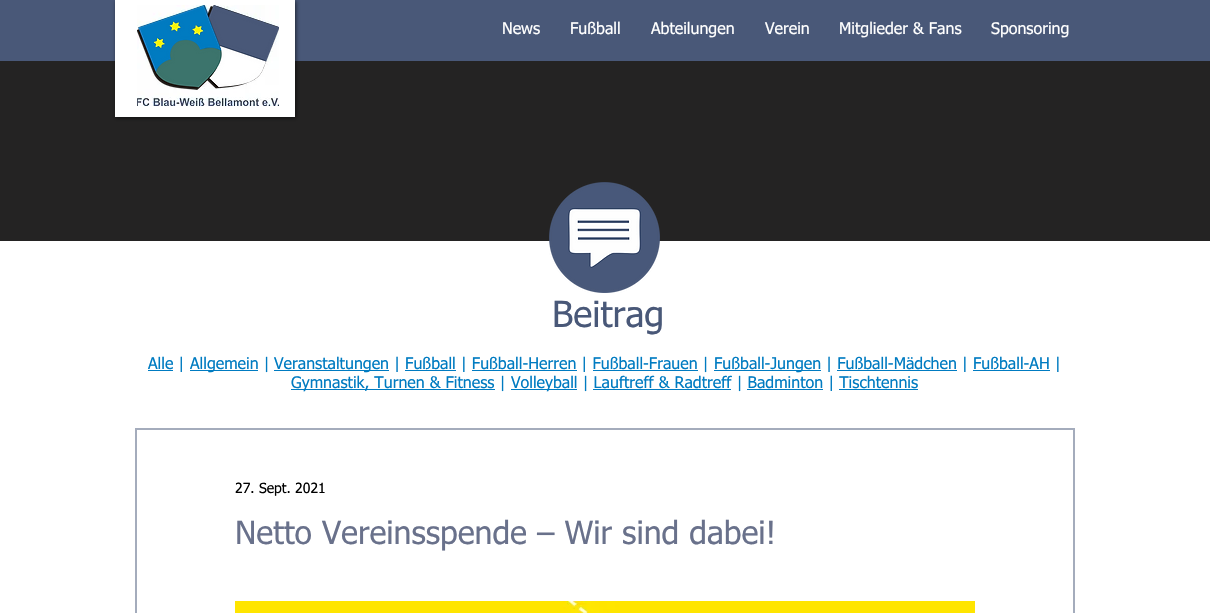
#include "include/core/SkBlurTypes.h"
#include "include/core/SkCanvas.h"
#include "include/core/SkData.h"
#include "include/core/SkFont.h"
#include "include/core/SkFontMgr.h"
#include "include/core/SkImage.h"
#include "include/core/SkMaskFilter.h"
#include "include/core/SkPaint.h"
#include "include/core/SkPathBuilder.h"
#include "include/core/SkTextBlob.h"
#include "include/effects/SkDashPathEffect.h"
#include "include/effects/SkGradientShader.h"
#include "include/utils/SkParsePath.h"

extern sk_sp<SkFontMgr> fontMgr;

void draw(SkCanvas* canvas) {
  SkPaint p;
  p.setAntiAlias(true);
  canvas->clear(SK_ColorWHITE);
  p.setColor(SkColorSetRGB(73, 88, 120));
  canvas->drawRect(SkRect::MakeLTRB(0, 0, 1210, 61), p);
  p.setColor(SkColorSetRGB(36, 35, 35));
  canvas->drawRect(SkRect::MakeLTRB(0, 61, 1210, 241), p);
  p.setColor(SkColorSetARGB(153, 0, 0, 0));
  p.setMaskFilter(SkMaskFilter::MakeBlur(kNormal_SkBlurStyle, 2));
  canvas->drawRect(SkRect::MakeLTRB(116, 1, 296, 118), p);
  p.setMaskFilter(nullptr);
  p.setColor(SK_ColorWHITE);
  canvas->drawRect(SkRect::MakeLTRB(115, 0, 295, 117), p);
  canvas->drawImageRect(SkImages::DeferredFromEncodedData(SkData::MakeFromFileName("images/1.png")), SkRect::MakeLTRB(137, 5, 279, 106), SkSamplingOptions());
  canvas->drawImageRect(SkImages::DeferredFromEncodedData(SkData::MakeFromFileName("images/2.png")), SkRect::MakeLTRB(137, 5, 279, 90), SkSamplingOptions());
  canvas->drawImageRect(SkImages::DeferredFromEncodedData(SkData::MakeFromFileName("images/3.png")), SkRect::MakeLTRB(549, 182, 660, 293), SkSamplingOptions());
  p.setColor(SkColorSetRGB(0, 123, 193));
  canvas->drawRect(SkRect::MakeLTRB(148, 370, 173, 371), p);
  canvas->drawRect(SkRect::MakeLTRB(190, 370, 258, 371), p);
  canvas->drawRect(SkRect::MakeLTRB(274, 370, 389, 371), p);
  canvas->drawRect(SkRect::MakeLTRB(405, 370, 456, 371), p);
  canvas->drawRect(SkRect::MakeLTRB(472, 370, 577, 371), p);
  canvas->drawRect(SkRect::MakeLTRB(593, 370, 698, 371), p);
  canvas->drawRect(SkRect::MakeLTRB(714, 370, 821, 371), p);
  canvas->drawRect(SkRect::MakeLTRB(837, 370, 957, 371), p);
  canvas->drawRect(SkRect::MakeLTRB(973, 370, 1050, 371), p);
  canvas->drawRect(SkRect::MakeLTRB(291, 389, 495, 390), p);
  canvas->drawRect(SkRect::MakeLTRB(511, 389, 577, 390), p);
  canvas->drawRect(SkRect::MakeLTRB(593, 389, 731, 390), p);
  canvas->drawRect(SkRect::MakeLTRB(747, 389, 823, 390), p);
  canvas->drawRect(SkRect::MakeLTRB(839, 389, 918, 390), p);
  p.setStyle(SkPaint::kStroke_Style);
  p.setStrokeWidth(2);
  p.setColor(SkColorSetRGB(164, 172, 188));
  canvas->drawRect(SkRect::MakeLTRB(136, 429, 1074, 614), p);
  canvas->drawImageRect(SkImages::DeferredFromEncodedData(SkData::MakeFromFileName("images/4.png")), SkRect::MakeLTRB(235, 601, 975, 613), SkSamplingOptions());
  SkFont font1(fontMgr->matchFamilyStyle("tahoma", SkFontStyle::Normal()), 16);
  font1.setSubpixel(true);
  p.setStyle(SkPaint::kFill_Style);
  p.setColor(SK_ColorWHITE);
  canvas->drawString("News", 502, 34, font1, p);
  canvas->drawString("Fußball", 570, 34, font1, p);
  canvas->drawString("Abteilungen", 651, 34, font1, p);
  canvas->drawString("Verein", 765, 34, font1, p);
  canvas->drawString("Mitglieder & Fans", 839, 34, font1, p);
  canvas->drawString("Sponsoring", 991, 34, font1, p);
  SkFont font2(fontMgr->matchFamilyStyle("tahoma", SkFontStyle::Normal()), 36);
  font2.setSubpixel(true);
  p.setColor(SkColorSetRGB(73, 88, 120));
  canvas->drawString("Beitrag", 552, 327, font2, p);
  p.setColor(SkColorSetRGB(0, 123, 193));
  canvas->drawString("Alle |", 148, 369, font1, p);
  canvas->drawString("Allgemein |", 190, 369, font1, p);
  canvas->drawString("Veranstaltungen | Fußball | Fußball-Herren | Fußball-Frauen |", 274, 369, font1, p);
  canvas->drawString("Fußball-Jungen | Fußball-Mädchen | Fußball-AH |", 714, 369, font1, p);
  canvas->drawString("Gymnastik, Turnen & Fitness |", 291, 388, font1, p);
  canvas->drawString("Volleyball | Lauftreff & Radtreff | Badminton | Tischtennis", 511, 388, font1, p);
  SkFont font3(fontMgr->matchFamilyStyle("tahoma", SkFontStyle::Normal()), 14);
  font3.setSubpixel(true);
  p.setColor(SK_ColorBLACK);
  canvas->drawString("27. Sept. 2021", 235, 493, font3, p);
  SkFont font4(fontMgr->matchFamilyStyle("tahoma", SkFontStyle::Normal()), 32);
  font4.setSubpixel(true);
  p.setColor(SkColorSetRGB(105, 113, 139));
  canvas->drawString("Netto Vereinsspende – Wir sind dabei!", 235, 544, font4, p);
}
